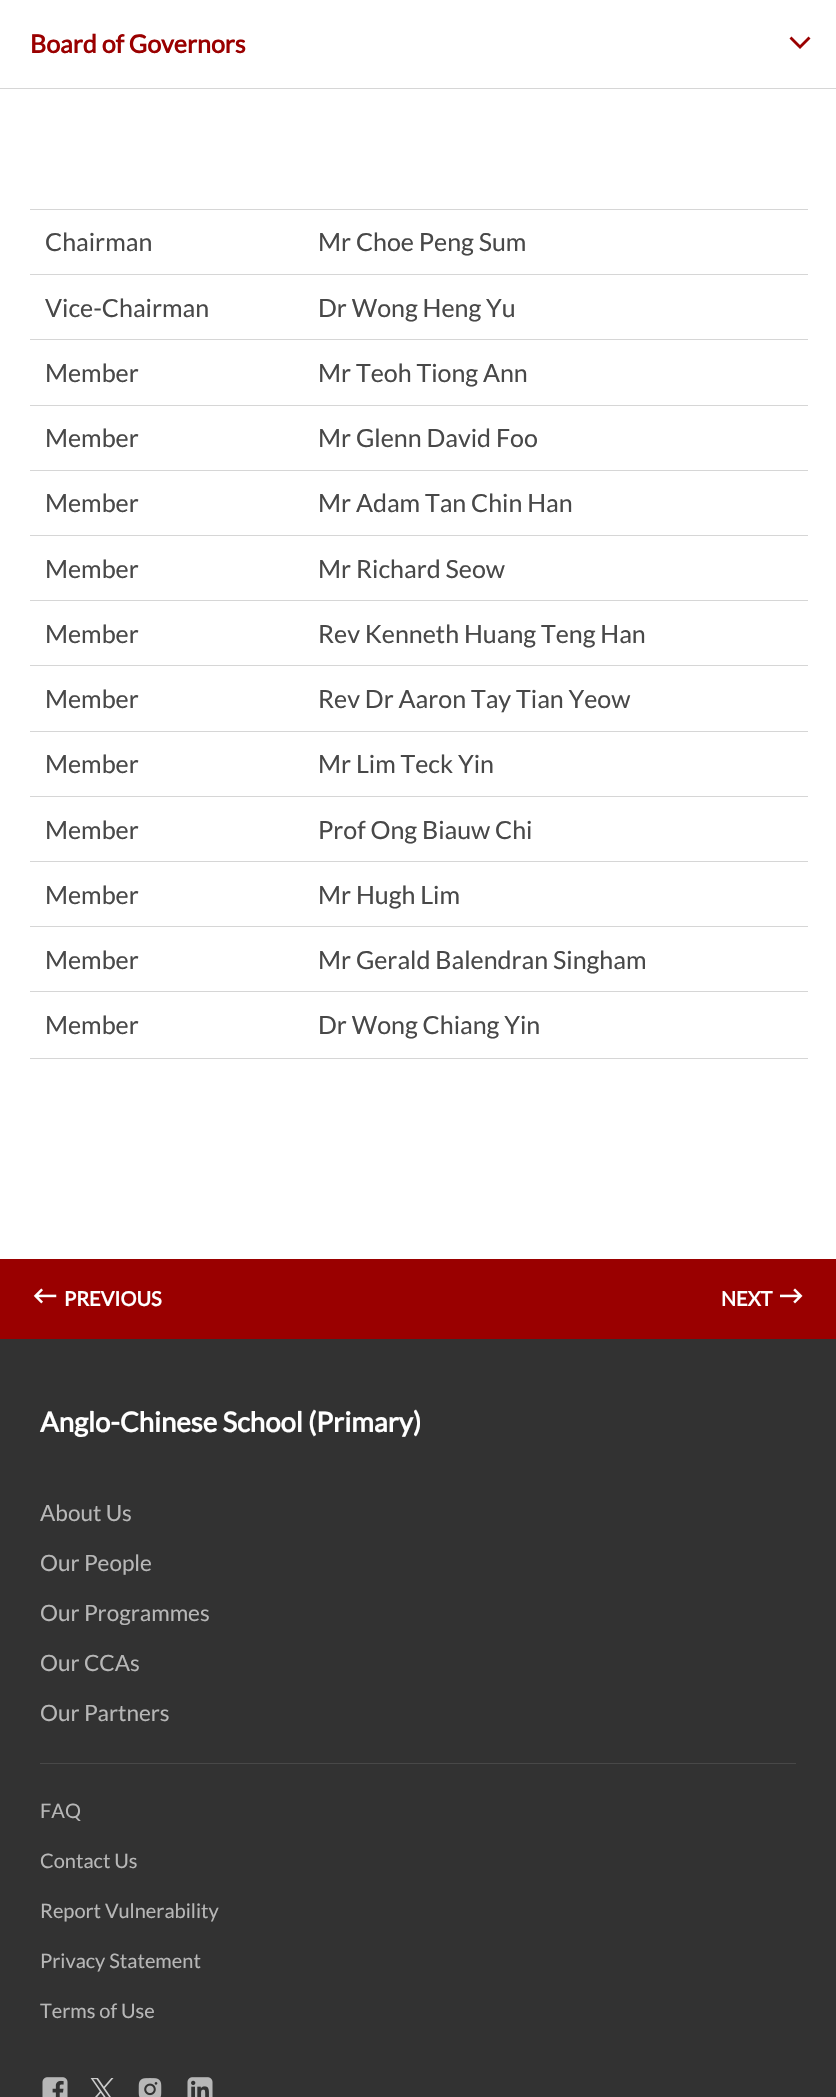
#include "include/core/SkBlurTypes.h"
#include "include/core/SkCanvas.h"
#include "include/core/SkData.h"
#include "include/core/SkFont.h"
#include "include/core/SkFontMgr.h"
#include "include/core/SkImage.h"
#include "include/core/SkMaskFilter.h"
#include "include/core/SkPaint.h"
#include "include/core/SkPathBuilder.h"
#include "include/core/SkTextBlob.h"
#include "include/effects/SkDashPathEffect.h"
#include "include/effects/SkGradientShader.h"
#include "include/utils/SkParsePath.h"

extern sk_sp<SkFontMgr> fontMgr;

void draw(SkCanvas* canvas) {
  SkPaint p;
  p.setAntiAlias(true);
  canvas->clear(SK_ColorWHITE);
  p.setColor(SkColorSetRGB(214, 214, 214));
  canvas->drawRect(SkRect::MakeLTRB(0, 88, 836, 89), p);
  p.setColor(SkColorSetRGB(154, 0, 0));
  canvas->drawPath(SkPathBuilder().moveTo(798, 47).lineTo(789.5f, 38.5f).lineTo(791.5f, 36.5f).lineTo(800, 45).lineTo(808.5f, 36.5f).lineTo(810.5f, 38.5f).lineTo(800, 49).close().detach(), p);
  p.setColor(SkColorSetRGB(214, 214, 214));
  canvas->drawRect(SkRect::MakeLTRB(30, 209, 808, 210), p);
  canvas->drawRect(SkRect::MakeLTRB(30, 274, 808, 275), p);
  canvas->drawRect(SkRect::MakeLTRB(30, 339, 808, 340), p);
  canvas->drawRect(SkRect::MakeLTRB(30, 405, 808, 406), p);
  canvas->drawRect(SkRect::MakeLTRB(30, 470, 808, 471), p);
  canvas->drawRect(SkRect::MakeLTRB(30, 535, 808, 536), p);
  canvas->drawRect(SkRect::MakeLTRB(30, 600, 808, 601), p);
  canvas->drawRect(SkRect::MakeLTRB(30, 665, 808, 666), p);
  canvas->drawRect(SkRect::MakeLTRB(30, 731, 808, 732), p);
  canvas->drawRect(SkRect::MakeLTRB(30, 796, 808, 797), p);
  canvas->drawRect(SkRect::MakeLTRB(30, 861, 808, 862), p);
  canvas->drawRect(SkRect::MakeLTRB(30, 926, 808, 927), p);
  canvas->drawRect(SkRect::MakeLTRB(30, 991, 808, 992), p);
  canvas->drawRect(SkRect::MakeLTRB(30, 1058, 808, 1059), p);
  p.setColor(SkColorSetRGB(154, 0, 0));
  canvas->drawRect(SkRect::MakeLTRB(0, 1259, 836, 1339), p);
  canvas->drawImageRect(SkImages::DeferredFromEncodedData(SkData::MakeFromFileName("images/1.png")), SkRect::MakeLTRB(33, 1288, 57, 1304), SkSamplingOptions());
  canvas->drawImageRect(SkImages::DeferredFromEncodedData(SkData::MakeFromFileName("images/2.png")), SkRect::MakeLTRB(780, 1288, 803, 1304), SkSamplingOptions());
  p.setColor(SkColorSetRGB(50, 50, 50));
  canvas->drawRect(SkRect::MakeLTRB(0, 1339, 836, 2097), p);
  p.setColor(SkColorSetRGB(72, 72, 72));
  canvas->drawRect(SkRect::MakeLTRB(40, 1763, 796, 1764), p);
  canvas->drawImageRect(SkImages::DeferredFromEncodedData(SkData::MakeFromFileName("images/3.png")), SkRect::MakeLTRB(42, 2077, 68, 2097), SkSamplingOptions());
  canvas->drawImageRect(SkImages::DeferredFromEncodedData(SkData::MakeFromFileName("images/4.png")), SkRect::MakeLTRB(90, 2078, 114, 2097), SkSamplingOptions());
  canvas->drawImageRect(SkImages::DeferredFromEncodedData(SkData::MakeFromFileName("images/5.png")), SkRect::MakeLTRB(138, 2078, 162, 2097), SkSamplingOptions());
  canvas->drawImageRect(SkImages::DeferredFromEncodedData(SkData::MakeFromFileName("images/6.png")), SkRect::MakeLTRB(187, 2077, 213, 2097), SkSamplingOptions());
  SkFont font1(fontMgr->matchFamilyStyle("Lato", SkFontStyle::Bold()), 25);
  font1.setSubpixel(true);
  p.setColor(SkColorSetRGB(154, 0, 0));
  canvas->drawString("Board of Governors", 30, 53, font1, p);
  SkFont font2(fontMgr->matchFamilyStyle("Lato", SkFontStyle::Normal()), 25);
  font2.setSubpixel(true);
  p.setColor(SkColorSetRGB(72, 72, 72));
  canvas->drawString("Chairman", 45, 251, font2, p);
  canvas->drawString("Mr Choe Peng Sum", 318, 251, font2, p);
  canvas->drawString("Vice-Chairman", 45, 317, font2, p);
  canvas->drawString("Dr Wong Heng Yu", 318, 317, font2, p);
  canvas->drawString("Member", 45, 382, font2, p);
  canvas->drawString("Mr Teoh Tiong Ann", 318, 382, font2, p);
  canvas->drawString("Member", 45, 447, font2, p);
  canvas->drawString("Mr Glenn David Foo", 318, 447, font2, p);
  canvas->drawString("Member", 45, 512, font2, p);
  canvas->drawString("Mr Adam Tan Chin Han", 318, 512, font2, p);
  canvas->drawString("Member", 45, 578, font2, p);
  canvas->drawString("Mr Richard Seow", 318, 578, font2, p);
  canvas->drawString("Member", 45, 643, font2, p);
  canvas->drawString("Rev Kenneth Huang Teng Han", 318, 643, font2, p);
  canvas->drawString("Member", 45, 708, font2, p);
  canvas->drawString("Rev Dr Aaron Tay Tian Yeow", 318, 708, font2, p);
  canvas->drawString("Member", 45, 773, font2, p);
  canvas->drawString("Mr Lim Teck Yin", 318, 773, font2, p);
  canvas->drawString("Member", 45, 839, font2, p);
  canvas->drawString("Prof Ong Biauw Chi", 318, 839, font2, p);
  canvas->drawString("Member", 45, 904, font2, p);
  canvas->drawString("Mr Hugh Lim", 318, 904, font2, p);
  canvas->drawString("Member", 45, 969, font2, p);
  canvas->drawString("Mr Gerald Balendran Singham", 318, 969, font2, p);
  canvas->drawString("Member", 45, 1034, font2, p);
  canvas->drawString("Dr Wong Chiang Yin", 318, 1034, font2, p);
  SkFont font3(fontMgr->matchFamilyStyle("Lato", SkFontStyle::Bold()), 20);
  font3.setSubpixel(true);
  p.setColor(SK_ColorWHITE);
  canvas->drawString("PREVIOUS", 64, 1306, font3, p);
  canvas->drawString("NEXT", 721, 1306, font3, p);
  SkFont font4(fontMgr->matchFamilyStyle("Lato", SkFontStyle::Bold()), 27.5f);
  font4.setSubpixel(true);
  canvas->drawString("Anglo-Chinese School (Primary)", 40, 1432, font4, p);
  SkFont font5(fontMgr->matchFamilyStyle("Lato", SkFontStyle::Normal()), 22.5f);
  font5.setSubpixel(true);
  p.setColor(SkColorSetRGB(183, 183, 183));
  canvas->drawString("About Us", 40, 1521, font5, p);
  canvas->drawString("Our People", 40, 1571, font5, p);
  canvas->drawString("Our Programmes", 40, 1621, font5, p);
  canvas->drawString("Our CCAs", 40, 1671, font5, p);
  canvas->drawString("Our Partners", 40, 1721, font5, p);
  SkFont font6(fontMgr->matchFamilyStyle("Lato", SkFontStyle::Normal()), 20);
  font6.setSubpixel(true);
  canvas->drawString("FAQ", 40, 1818, font6, p);
  canvas->drawString("Contact Us", 40, 1868, font6, p);
  canvas->drawString("Report Vulnerability", 40, 1918, font6, p);
  canvas->drawString("Privacy Statement", 40, 1968, font6, p);
  canvas->drawString("Terms of Use", 40, 2018, font6, p);
}
